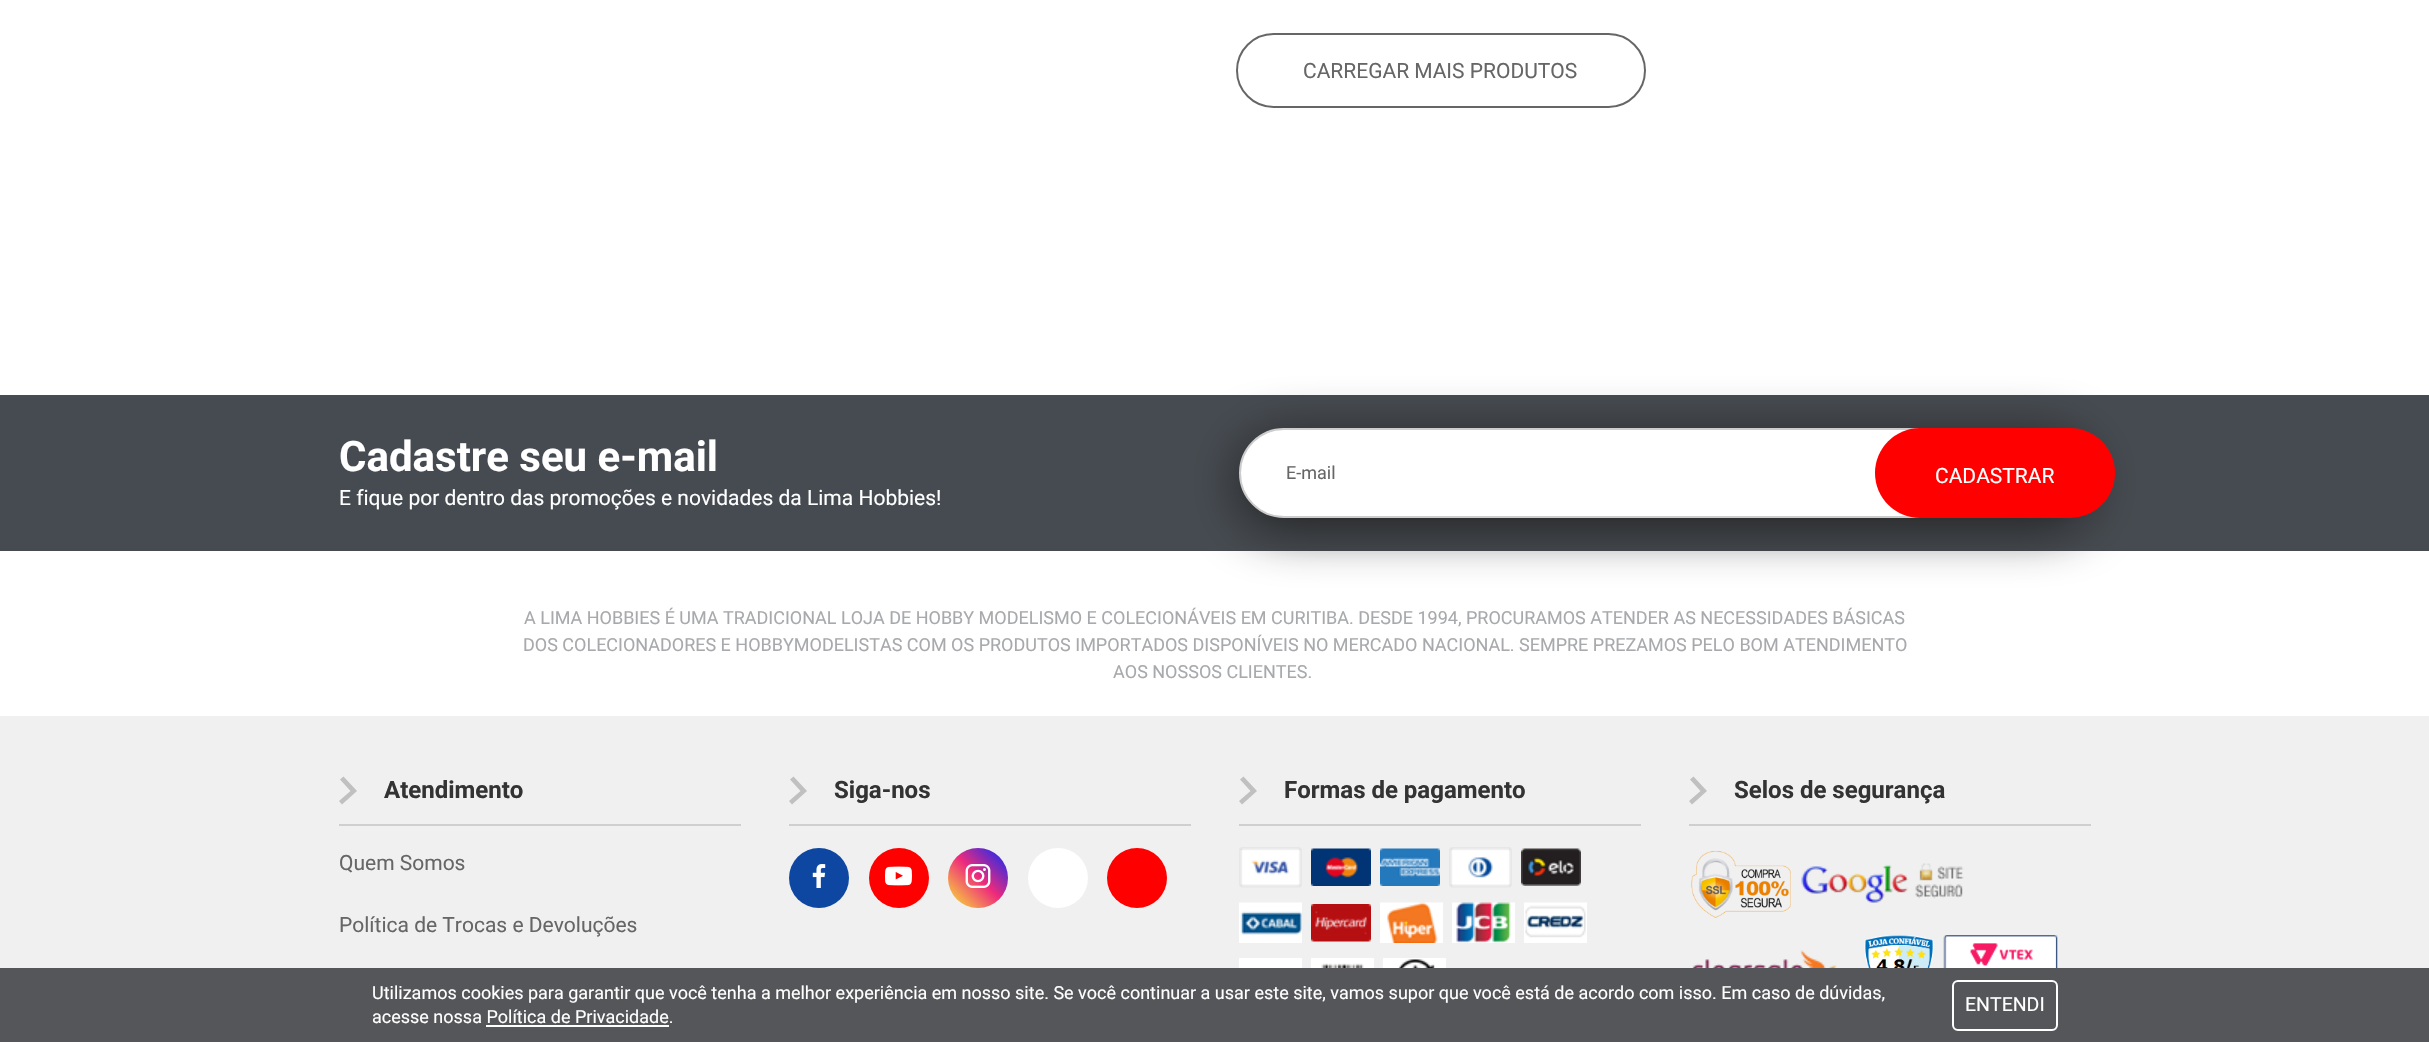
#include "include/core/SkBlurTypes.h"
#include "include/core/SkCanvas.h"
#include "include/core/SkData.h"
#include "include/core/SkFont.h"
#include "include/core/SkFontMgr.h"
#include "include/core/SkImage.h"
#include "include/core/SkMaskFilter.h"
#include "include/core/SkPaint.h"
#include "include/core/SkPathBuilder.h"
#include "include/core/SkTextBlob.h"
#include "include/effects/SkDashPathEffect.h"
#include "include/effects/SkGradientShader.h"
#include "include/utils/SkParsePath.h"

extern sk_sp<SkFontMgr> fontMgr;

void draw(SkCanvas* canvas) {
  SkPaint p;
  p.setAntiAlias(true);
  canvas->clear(SK_ColorWHITE);
  p.setStyle(SkPaint::kStroke_Style);
  p.setStrokeWidth(2);
  p.setColor(SkColorSetRGB(102, 102, 102));
  canvas->drawRoundRect(SkRect::MakeLTRB(1237, 34, 1645, 107), 36.5f, 36.5f, p);
  p.setStyle(SkPaint::kFill_Style);
  p.setColor(SkColorSetRGB(70, 75, 81));
  canvas->drawRect(SkRect::MakeLTRB(0, 395, 2429, 551), p);
  p.setColor(SkColorSetRGB(33, 33, 33));
  p.setMaskFilter(SkMaskFilter::MakeBlur(kNormal_SkBlurStyle, 25.5f));
  canvas->drawRoundRect(SkRect::MakeLTRB(1239, 437, 2091, 527), 45, 45, p);
  p.setMaskFilter(nullptr);
  p.setColor(SK_ColorWHITE);
  canvas->drawRoundRect(SkRect::MakeLTRB(1240, 429, 2090, 517), 44, 44, p);
  p.setStyle(SkPaint::kStroke_Style);
  p.setColor(SkColorSetRGB(204, 204, 204));
  canvas->drawRoundRect(SkRect::MakeLTRB(1240, 429, 2090, 517), 44, 44, p);
  p.setStyle(SkPaint::kFill_Style);
  p.setColor(SkColorSetRGB(255, 0, 0));
  canvas->drawRoundRect(SkRect::MakeLTRB(1875, 428, 2115, 518), 45, 45, p);
  p.setColor(SkColorSetRGB(240, 240, 240));
  canvas->drawRect(SkRect::MakeLTRB(0, 716, 2429, 968), p);
  p.setColor(SkColorSetRGB(207, 207, 208));
  canvas->drawRect(SkRect::MakeLTRB(339, 824, 741, 826), p);
  p.setColor(SkColorSetRGB(192, 192, 192));
  canvas->drawPath(SkPathBuilder().moveTo(343.5f, 776.5f).lineTo(357, 791).lineTo(342, 804.5f).lineTo(339, 801).lineTo(350.5f, 791).lineTo(340, 779.5f).close().detach(), p);
  p.setColor(SkColorSetRGB(207, 207, 208));
  canvas->drawRect(SkRect::MakeLTRB(789, 824, 1191, 826), p);
  p.setColor(SkColorSetRGB(192, 192, 192));
  canvas->drawPath(SkPathBuilder().moveTo(793.5f, 776.5f).lineTo(807, 791).lineTo(792, 804.5f).lineTo(789, 801).lineTo(800.5f, 791).lineTo(790, 779.5f).close().detach(), p);
  p.setColor(SkColorSetRGB(13, 71, 161));
  canvas->drawCircle(819, 878, 30, p);
  canvas->drawImageRect(SkImages::DeferredFromEncodedData(SkData::MakeFromFileName("images/1.png")), SkRect::MakeLTRB(812, 864, 826, 888), SkSamplingOptions());
  p.setColor(SkColorSetRGB(255, 0, 0));
  canvas->drawCircle(899, 878, 30, p);
  canvas->drawImageRect(SkImages::DeferredFromEncodedData(SkData::MakeFromFileName("images/2.png")), SkRect::MakeLTRB(885, 866, 912, 886), SkSamplingOptions());
  {
    const SkColor colors[] = {SkColorSetRGB(249, 236, 50), SkColorSetRGB(238, 42, 124), SkColorSetRGB(0, 43, 255)};
    const float stops[] = {0, 0.51f, 1};
    const SkPoint ends[] = {{948, 908}, {1008, 848}};
    p.setShader(SkGradientShader::MakeLinear(ends, colors, stops, 3, SkTileMode::kClamp));
    p.setAlpha(255);
  }
  canvas->drawCircle(978, 878, 30, p);
  canvas->drawImageRect(SkImages::DeferredFromEncodedData(SkData::MakeFromFileName("images/3.png")), SkRect::MakeLTRB(965, 864, 991, 888), SkSamplingOptions());
  p.setShader(nullptr);
  p.setColor(SK_ColorWHITE);
  canvas->drawCircle(1058, 878, 30, p);
  p.setColor(SkColorSetRGB(255, 0, 0));
  canvas->drawCircle(1137, 878, 30, p);
  p.setColor(SkColorSetRGB(207, 207, 208));
  canvas->drawRect(SkRect::MakeLTRB(1239, 824, 1641, 826), p);
  p.setColor(SkColorSetRGB(192, 192, 192));
  canvas->drawPath(SkPathBuilder().moveTo(1243.5f, 776.5f).lineTo(1257, 791).lineTo(1242, 804.5f).lineTo(1239, 801).lineTo(1250.5f, 791).lineTo(1240, 779.5f).close().detach(), p);
  canvas->drawImageRect(SkImages::DeferredFromEncodedData(SkData::MakeFromFileName("images/4.png")), SkRect::MakeLTRB(1239, 847, 1302, 888), SkSamplingOptions());
  canvas->drawImageRect(SkImages::DeferredFromEncodedData(SkData::MakeFromFileName("images/5.png")), SkRect::MakeLTRB(1311, 848, 1371, 886), SkSamplingOptions());
  canvas->drawImageRect(SkImages::DeferredFromEncodedData(SkData::MakeFromFileName("images/6.png")), SkRect::MakeLTRB(1380, 848, 1440, 886), SkSamplingOptions());
  canvas->drawImageRect(SkImages::DeferredFromEncodedData(SkData::MakeFromFileName("images/7.png")), SkRect::MakeLTRB(1449, 847, 1512, 888), SkSamplingOptions());
  canvas->drawImageRect(SkImages::DeferredFromEncodedData(SkData::MakeFromFileName("images/8.png")), SkRect::MakeLTRB(1521, 848, 1581, 886), SkSamplingOptions());
  canvas->drawImageRect(SkImages::DeferredFromEncodedData(SkData::MakeFromFileName("images/9.png")), SkRect::MakeLTRB(1239, 902, 1302, 943), SkSamplingOptions());
  canvas->drawImageRect(SkImages::DeferredFromEncodedData(SkData::MakeFromFileName("images/10.png")), SkRect::MakeLTRB(1311, 904, 1371, 942), SkSamplingOptions());
  canvas->drawImageRect(SkImages::DeferredFromEncodedData(SkData::MakeFromFileName("images/11.png")), SkRect::MakeLTRB(1380, 902, 1443, 943), SkSamplingOptions());
  canvas->drawImageRect(SkImages::DeferredFromEncodedData(SkData::MakeFromFileName("images/12.png")), SkRect::MakeLTRB(1452, 902, 1515, 943), SkSamplingOptions());
  canvas->drawImageRect(SkImages::DeferredFromEncodedData(SkData::MakeFromFileName("images/13.png")), SkRect::MakeLTRB(1524, 902, 1587, 943), SkSamplingOptions());
  canvas->drawImageRect(SkImages::DeferredFromEncodedData(SkData::MakeFromFileName("images/14.png")), SkRect::MakeLTRB(1239, 958, 1302, 968), SkSamplingOptions());
  canvas->drawImageRect(SkImages::DeferredFromEncodedData(SkData::MakeFromFileName("images/15.png")), SkRect::MakeLTRB(1311, 958, 1374, 968), SkSamplingOptions());
  canvas->drawImageRect(SkImages::DeferredFromEncodedData(SkData::MakeFromFileName("images/16.png")), SkRect::MakeLTRB(1383, 958, 1446, 968), SkSamplingOptions());
  p.setColor(SkColorSetRGB(207, 207, 208));
  canvas->drawRect(SkRect::MakeLTRB(1689, 824, 2091, 826), p);
  p.setColor(SkColorSetRGB(192, 192, 192));
  canvas->drawPath(SkPathBuilder().moveTo(1693.5f, 776.5f).lineTo(1707, 791).lineTo(1692, 804.5f).lineTo(1689, 801).lineTo(1700.5f, 791).lineTo(1690, 779.5f).close().detach(), p);
  canvas->drawImageRect(SkImages::DeferredFromEncodedData(SkData::MakeFromFileName("images/17.png")), SkRect::MakeLTRB(1691, 850, 1791, 918), SkSamplingOptions());
  canvas->drawImageRect(SkImages::DeferredFromEncodedData(SkData::MakeFromFileName("images/18.png")), SkRect::MakeLTRB(1801, 863, 1964, 903), SkSamplingOptions());
  canvas->drawImageRect(SkImages::DeferredFromEncodedData(SkData::MakeFromFileName("images/19.png")), SkRect::MakeLTRB(1692, 950, 1837, 968), SkSamplingOptions());
  canvas->drawImageRect(SkImages::DeferredFromEncodedData(SkData::MakeFromFileName("images/20.png")), SkRect::MakeLTRB(1864, 935, 1934, 968), SkSamplingOptions());
  canvas->drawImageRect(SkImages::DeferredFromEncodedData(SkData::MakeFromFileName("images/21.png")), SkRect::MakeLTRB(1943, 935, 2058, 968), SkSamplingOptions());
  p.setColor(SkColorSetRGB(85, 86, 90));
  canvas->drawRect(SkRect::MakeLTRB(0, 968, 2429, 1042), p);
  p.setColor(SK_ColorWHITE);
  canvas->drawRect(SkRect::MakeLTRB(486, 1025, 669, 1027), p);
  p.setStyle(SkPaint::kStroke_Style);
  canvas->drawRoundRect(SkRect::MakeLTRB(1953, 981, 2057, 1030), 5, 5, p);
  SkFont font1(fontMgr->matchFamilyStyle("Roboto", SkFontStyle::Normal()), 21);
  font1.setSubpixel(true);
  p.setStyle(SkPaint::kFill_Style);
  p.setColor(SkColorSetRGB(102, 102, 102));
  canvas->drawString("CARREGAR MAIS PRODUTOS", 1303, 78, font1, p);
  SkFont font2(fontMgr->matchFamilyStyle("Roboto", SkFontStyle::Bold()), 42);
  font2.setSubpixel(true);
  p.setColor(SK_ColorWHITE);
  canvas->drawString("Cadastre seu e-mail", 339, 471, font2, p);
  canvas->drawString("E fique por dentro das promoções e novidades da Lima Hobbies!", 339, 505, font1, p);
  SkFont font3(fontMgr->matchFamilyStyle("Roboto", SkFontStyle::Normal()), 18);
  font3.setSubpixel(true);
  p.setColor(SkColorSetRGB(102, 102, 102));
  canvas->drawString("E-mail", 1286, 479, font3, p);
  p.setColor(SK_ColorWHITE);
  canvas->drawString("CADASTRAR", 1935, 483, font1, p);
  p.setColor(SkColorSetRGB(167, 169, 172));
  canvas->drawString("A LIMA HOBBIES É UMA TRADICIONAL LOJA DE HOBBY MODELISMO E COLECIONÁVEIS EM CURITIBA. DESDE 1994, PROCURAMOS ATENDER AS NECESSIDADES BÁSICAS", 524, 624, font3, p);
  canvas->drawString("DOS COLECIONADORES E HOBBYMODELISTAS COM OS PRODUTOS IMPORTADOS DISPONÍVEIS NO MERCADO NACIONAL. SEMPRE PREZAMOS PELO BOM ATENDIMENTO", 523, 651, font3, p);
  canvas->drawString("AOS NOSSOS CLIENTES.", 1113, 678, font3, p);
  SkFont font4(fontMgr->matchFamilyStyle("Roboto", SkFontStyle::Bold()), 24);
  font4.setSubpixel(true);
  p.setColor(SkColorSetRGB(51, 51, 51));
  canvas->drawString("Atendimento", 384, 798, font4, p);
  p.setColor(SkColorSetRGB(102, 102, 102));
  canvas->drawString("Quem Somos", 339, 870, font1, p);
  canvas->drawString("Política de Trocas e Devoluções", 339, 932, font1, p);
  p.setColor(SkColorSetRGB(51, 51, 51));
  canvas->drawString("Siga-nos", 834, 798, font4, p);
  canvas->drawString("Formas de pagamento", 1284, 798, font4, p);
  canvas->drawString("Selos de segurança", 1734, 798, font4, p);
  p.setColor(SK_ColorWHITE);
  canvas->drawString("Utilizamos cookies para garantir que você tenha a melhor experiência em nosso site. Se você continuar a usar este site, vamos supor que você está de acordo com isso. Em caso de dúvidas,", 372, 999, font3, p);
  canvas->drawString("acesse nossa Política de Privacidade.", 372, 1023, font3, p);
  SkFont font5(fontMgr->matchFamilyStyle("Roboto", SkFontStyle::Normal()), 19.5f);
  font5.setSubpixel(true);
  canvas->drawString("ENTENDI", 1965, 1011, font5, p);
}
